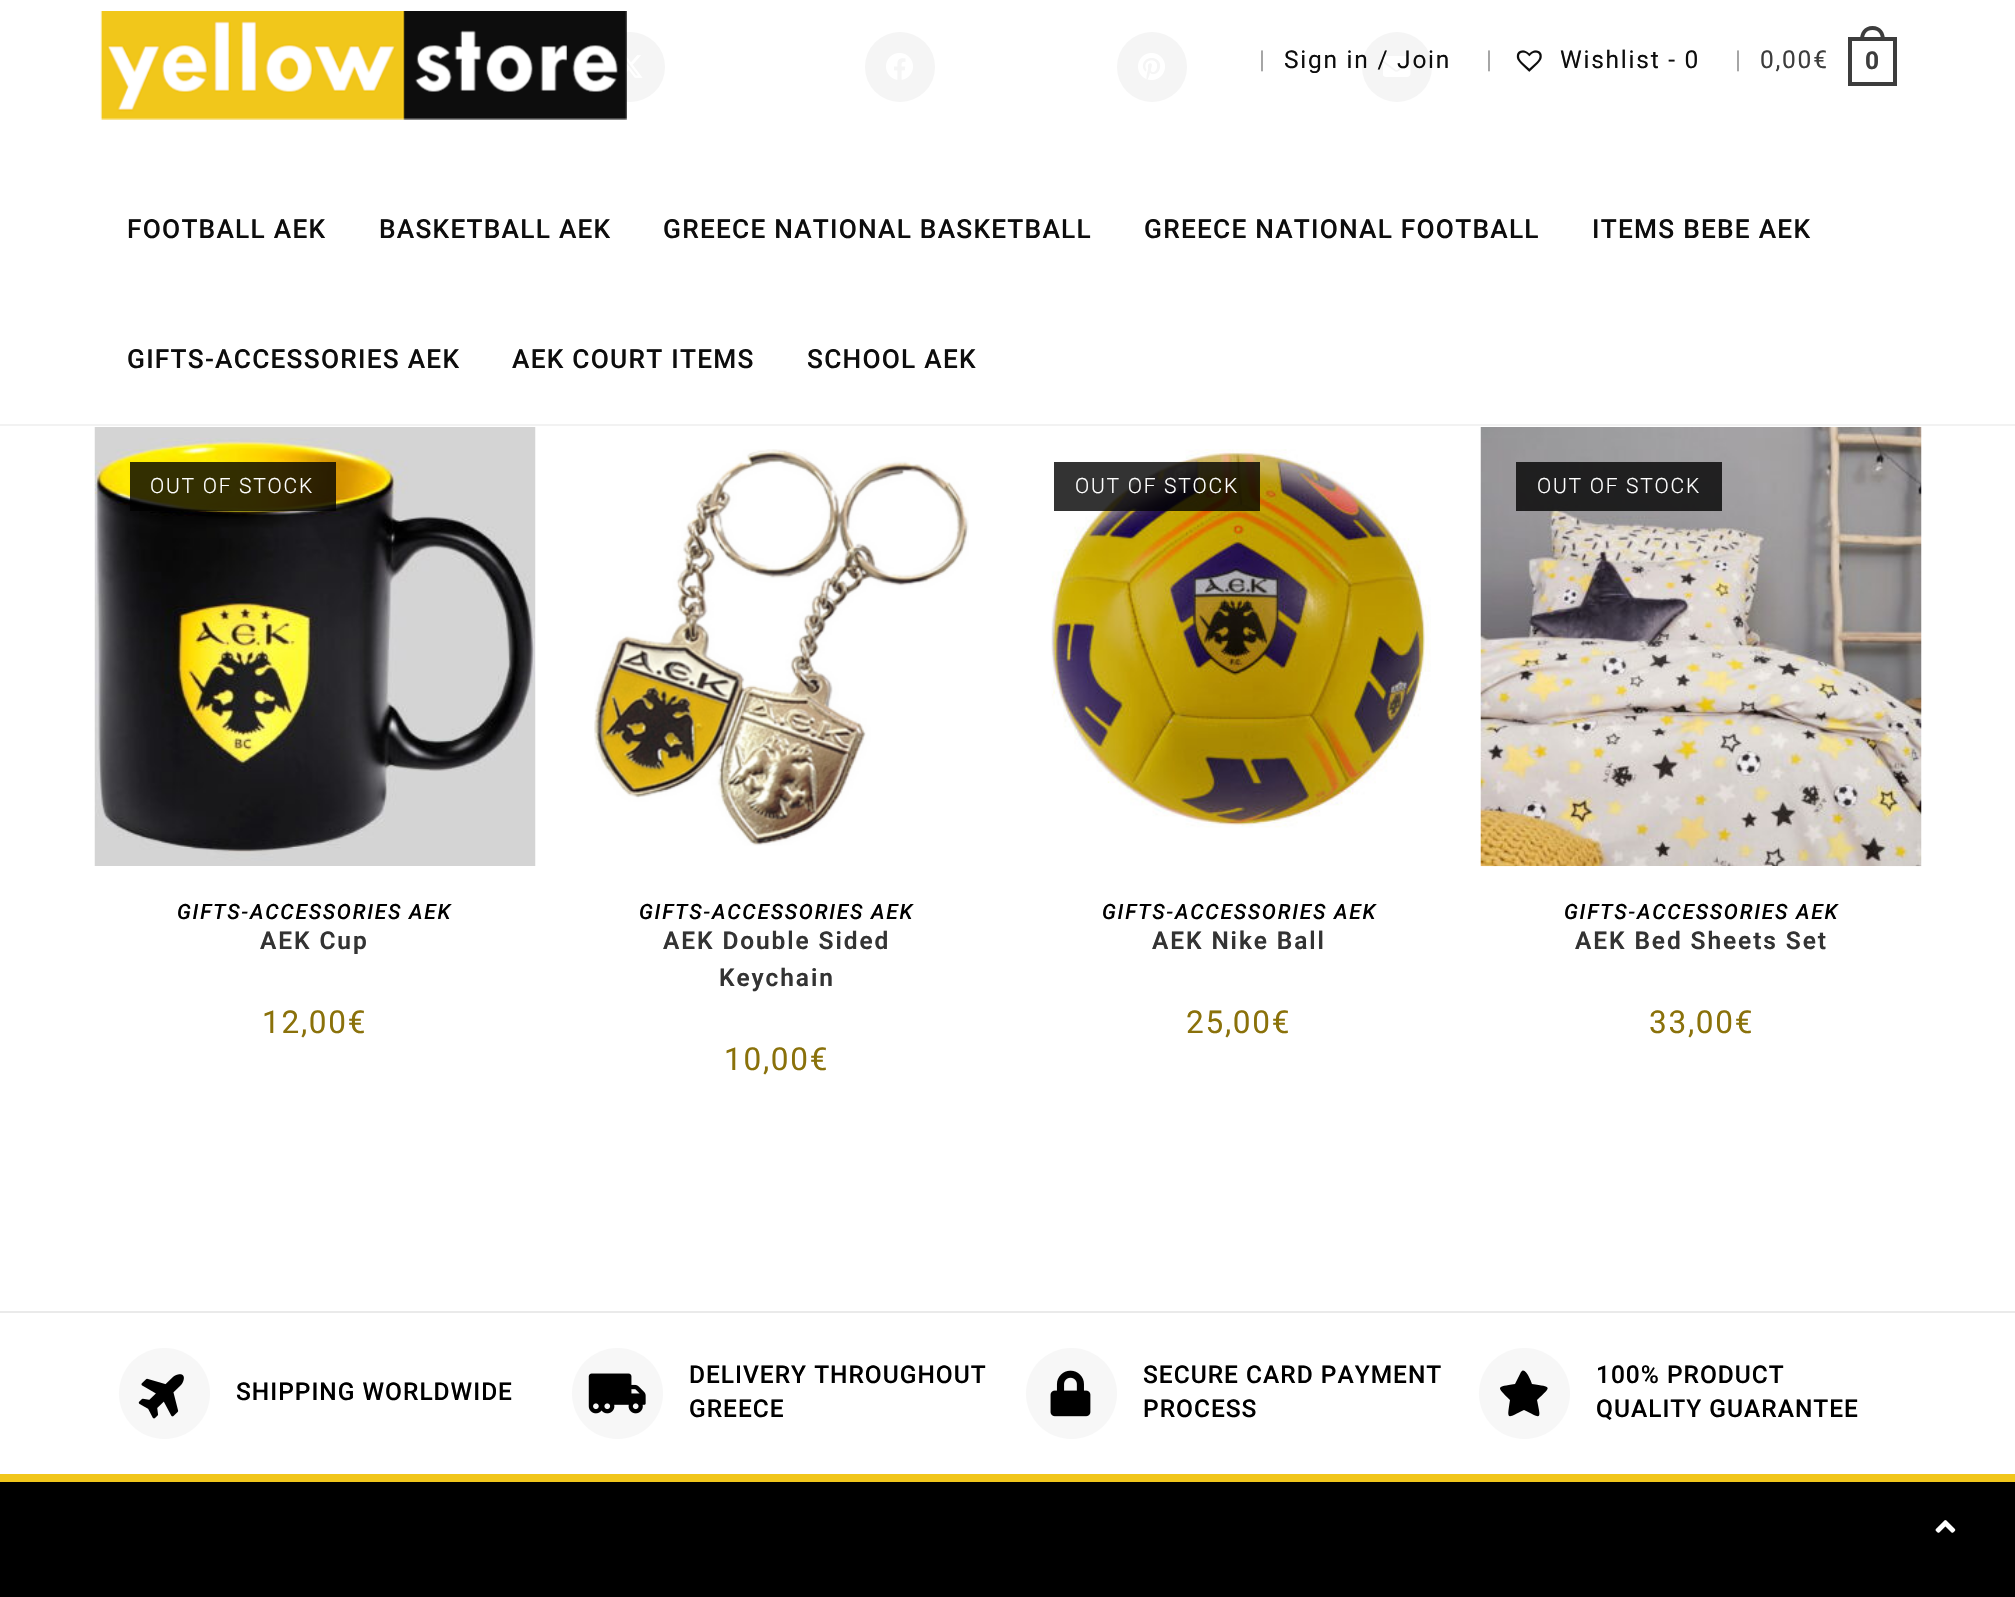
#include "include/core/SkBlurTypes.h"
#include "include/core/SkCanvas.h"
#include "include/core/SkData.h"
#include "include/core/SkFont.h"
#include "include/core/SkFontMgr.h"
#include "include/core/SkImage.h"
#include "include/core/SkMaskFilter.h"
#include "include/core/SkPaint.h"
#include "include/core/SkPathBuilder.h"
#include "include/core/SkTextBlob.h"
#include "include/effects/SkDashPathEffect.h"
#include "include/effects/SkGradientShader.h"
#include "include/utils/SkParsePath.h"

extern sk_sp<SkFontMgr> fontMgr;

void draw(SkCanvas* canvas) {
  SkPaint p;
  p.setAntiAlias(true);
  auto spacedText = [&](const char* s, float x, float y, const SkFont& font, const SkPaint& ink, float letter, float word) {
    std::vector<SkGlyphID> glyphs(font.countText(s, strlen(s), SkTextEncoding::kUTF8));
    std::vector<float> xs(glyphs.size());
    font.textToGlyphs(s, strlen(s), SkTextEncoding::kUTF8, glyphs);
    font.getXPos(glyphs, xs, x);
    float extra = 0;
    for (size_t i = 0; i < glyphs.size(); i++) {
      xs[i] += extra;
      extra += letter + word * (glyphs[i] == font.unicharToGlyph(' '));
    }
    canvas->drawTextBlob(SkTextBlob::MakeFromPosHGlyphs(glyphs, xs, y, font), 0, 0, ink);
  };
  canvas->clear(SK_ColorWHITE);
  p.setColor(SkColorSetRGB(242, 242, 242));
  canvas->drawRect(SkRect::MakeLTRB(0, 424, 2015, 426), p);
  p.setColor(SkColorSetRGB(245, 245, 245));
  canvas->drawCircle(630, 67, 35, p);
  canvas->drawImageRect(SkImages::DeferredFromEncodedData(SkData::MakeFromFileName("images/3.png")), SkRect::MakeLTRB(617, 55, 643, 78), SkSamplingOptions());
  canvas->drawImageRect(SkImages::DeferredFromEncodedData(SkData::MakeFromFileName("images/1.png")), SkRect::MakeLTRB(100, 11, 627, 120), SkSamplingOptions());
  canvas->drawImageRect(SkImages::DeferredFromEncodedData(SkData::MakeFromFileName("images/2.png")), SkRect::MakeLTRB(1516, 50, 1542, 72), SkSamplingOptions());
  p.setStyle(SkPaint::kStroke_Style);
  p.setStrokeWidth(4);
  p.setColor(SkColorSetRGB(61, 61, 61));
  canvas->drawRect(SkRect::MakeLTRB(1850, 39, 1895, 84), p);
  p.setStyle(SkPaint::kFill_Style);
  canvas->drawPath(SkPathBuilder(SkPathFillType::kEvenOdd).moveTo(1872.5f, 26).cubicTo(1881, 26, 1885, 32.5f, 1885, 40).lineTo(1860, 40).cubicTo(1860, 32.5f, 1864, 26, 1872.5f, 26).close().moveTo(1872.5f, 30).cubicTo(1879, 30, 1881, 34.5f, 1881, 40).lineTo(1864, 40).cubicTo(1864, 34.5f, 1866, 30, 1872.5f, 30).close().detach(), p);
  p.setColor(SkColorSetRGB(245, 245, 245));
  canvas->drawCircle(900, 67, 35, p);
  canvas->drawImageRect(SkImages::DeferredFromEncodedData(SkData::MakeFromFileName("images/4.png")), SkRect::MakeLTRB(886, 53, 914, 80), SkSamplingOptions());
  canvas->drawCircle(1152, 67, 35, p);
  canvas->drawImageRect(SkImages::DeferredFromEncodedData(SkData::MakeFromFileName("images/5.png")), SkRect::MakeLTRB(1138, 53, 1166, 81), SkSamplingOptions());
  canvas->drawCircle(1397, 67, 35, p);
  canvas->drawImageRect(SkImages::DeferredFromEncodedData(SkData::MakeFromFileName("images/6.png")), SkRect::MakeLTRB(1383, 56, 1411, 77), SkSamplingOptions());
  canvas->drawImageRect(SkImages::DeferredFromEncodedData(SkData::MakeFromFileName("images/7.png")), SkRect::MakeLTRB(94, 427, 536, 866), SkSamplingOptions());
  p.setColor(SkColorSetARGB(204, 0, 0, 0));
  canvas->drawRect(SkRect::MakeLTRB(130, 462, 336, 511), p);
  canvas->drawImageRect(SkImages::DeferredFromEncodedData(SkData::MakeFromFileName("images/8.png")), SkRect::MakeLTRB(594, 449, 969, 846), SkSamplingOptions());
  canvas->drawImageRect(SkImages::DeferredFromEncodedData(SkData::MakeFromFileName("images/9.png")), SkRect::MakeLTRB(1051, 449, 1431, 828), SkSamplingOptions());
  canvas->drawRect(SkRect::MakeLTRB(1054, 462, 1260, 511), p);
  canvas->drawImageRect(SkImages::DeferredFromEncodedData(SkData::MakeFromFileName("images/10.png")), SkRect::MakeLTRB(1480, 427, 1922, 867), SkSamplingOptions());
  canvas->drawRect(SkRect::MakeLTRB(1516, 462, 1722, 511), p);
  p.setColor(SK_ColorWHITE);
  canvas->drawRect(SkRect::MakeLTRB(1516, 866, 1887, 867), p);
  p.setColor(SkColorSetRGB(234, 234, 234));
  canvas->drawRect(SkRect::MakeLTRB(0, 1311, 2015, 1313), p);
  p.setColor(SkColorSetRGB(247, 247, 247));
  canvas->drawCircle(164.5f, 1393.5f, 45.5f, p);
  canvas->drawImageRect(SkImages::DeferredFromEncodedData(SkData::MakeFromFileName("images/11.png")), SkRect::MakeLTRB(138, 1374, 184, 1419), SkSamplingOptions());
  canvas->drawCircle(617.5f, 1393.5f, 45.5f, p);
  canvas->drawImageRect(SkImages::DeferredFromEncodedData(SkData::MakeFromFileName("images/12.png")), SkRect::MakeLTRB(588, 1373, 646, 1414), SkSamplingOptions());
  canvas->drawCircle(1071.5f, 1393.5f, 45.5f, p);
  canvas->drawImageRect(SkImages::DeferredFromEncodedData(SkData::MakeFromFileName("images/13.png")), SkRect::MakeLTRB(1050, 1370, 1091, 1417), SkSamplingOptions());
  canvas->drawCircle(1524.5f, 1393.5f, 45.5f, p);
  p.setColor(SK_ColorBLACK);
  canvas->drawPath(SkPathBuilder().moveTo(1521, 1372).cubicTo(1525, 1365, 1532, 1383, 1532, 1384).cubicTo(1552, 1387, 1552, 1386, 1537, 1400).cubicTo(1541, 1420, 1542, 1419, 1524, 1410).cubicTo(1506, 1419, 1507, 1420, 1510, 1400).cubicTo(1496, 1386, 1496, 1387, 1515, 1384).close().detach(), p);
  canvas->drawRect(SkRect::MakeLTRB(0, 1482, 2015, 1597), p);
  p.setColor(SkColorSetRGB(241, 198, 27));
  canvas->drawRect(SkRect::MakeLTRB(0, 1474, 2015, 1482), p);
  canvas->drawImageRect(SkImages::DeferredFromEncodedData(SkData::MakeFromFileName("images/14.png")), SkRect::MakeLTRB(1935, 1520, 1956, 1533), SkSamplingOptions());
  SkFont font1(fontMgr->matchFamilyStyle("Roboto", SkFontStyle::Normal()), 24.5f);
  font1.setSubpixel(true);
  p.setColor(SkColorSetRGB(158, 158, 158));
  spacedText("|", 1259, 68, font1, p, 1.75f, 0);
  p.setColor(SkColorSetRGB(13, 13, 13));
  spacedText("Sign in / Join", 1284, 68, font1, p, 1.75f, 0);
  p.setColor(SkColorSetRGB(158, 158, 158));
  spacedText("|", 1486, 68, font1, p, 1.75f, 0);
  p.setColor(SkColorSetRGB(13, 13, 13));
  spacedText("Wishlist - 0", 1560, 68, font1, p, 1.75f, 0);
  p.setColor(SkColorSetRGB(158, 158, 158));
  spacedText("|", 1735, 68, font1, p, 1.75f, 0);
  p.setColor(SkColorSetRGB(61, 61, 61));
  spacedText("0,00€", 1760, 68, font1, p, 1.75f, 0);
  SkFont font2(fontMgr->matchFamilyStyle("Roboto", SkFontStyle::Bold()), 24.5f);
  font2.setSubpixel(true);
  spacedText("0", 1865, 69, font2, p, 1.75f, 0);
  SkFont font3(fontMgr->matchFamilyStyle("Roboto", SkFontStyle(500, SkFontStyle::kNormal_Width, SkFontStyle::kUpright_Slant)), 26.25f);
  font3.setSubpixel(true);
  p.setColor(SkColorSetRGB(13, 13, 13));
  spacedText("FOOTBALL AEK", 127, 238, font3, p, 1.25f, 0);
  spacedText("BASKETBALL AEK", 379, 238, font3, p, 1.25f, 0);
  spacedText("GREECE NATIONAL BASKETBALL", 663, 238, font3, p, 1.25f, 0);
  spacedText("GREECE NATIONAL FOOTBALL", 1144, 238, font3, p, 1.25f, 0);
  spacedText("ITEMS BEBE AEK", 1592, 238, font3, p, 1.25f, 0);
  spacedText("GIFTS-ACCESSORIES AEK", 127, 368, font3, p, 1.25f, 0);
  spacedText("AEK COURT ITEMS", 512, 368, font3, p, 1.25f, 0);
  spacedText("SCHOOL AEK", 807, 368, font3, p, 1.25f, 0);
  SkFont font4(fontMgr->matchFamilyStyle("Roboto", SkFontStyle(300, SkFontStyle::kNormal_Width, SkFontStyle::kUpright_Slant)), 21);
  font4.setSubpixel(true);
  p.setColor(SK_ColorWHITE);
  spacedText("OUT OF STOCK", 150, 493, font4, p, 1.75f, 0);
  SkFont font5(fontMgr->matchFamilyStyle("Roboto", SkFontStyle(500, SkFontStyle::kNormal_Width, SkFontStyle::kItalic_Slant)), 21);
  font5.setSubpixel(true);
  p.setColor(SK_ColorBLACK);
  spacedText("GIFTS-ACCESSORIES AEK", 177, 919, font5, p, 1.75f, 0);
  SkFont font6(fontMgr->matchFamilyStyle("Roboto", SkFontStyle(600, SkFontStyle::kNormal_Width, SkFontStyle::kUpright_Slant)), 24.5f);
  font6.setSubpixel(true);
  p.setColor(SkColorSetRGB(51, 51, 51));
  spacedText("AEK Cup", 260, 949, font6, p, 1.9f, 0);
  SkFont font7(fontMgr->matchFamilyStyle("Roboto", SkFontStyle::Normal()), 31.5f);
  font7.setSubpixel(true);
  p.setColor(SkColorSetRGB(138, 113, 10));
  spacedText("12,00€", 262, 1033, font7, p, 1.75f, 0);
  p.setColor(SK_ColorBLACK);
  spacedText("GIFTS-ACCESSORIES AEK", 639, 919, font5, p, 1.75f, 0);
  p.setColor(SkColorSetRGB(51, 51, 51));
  spacedText("AEK Double Sided", 663, 949, font6, p, 1.9f, 0);
  spacedText("Keychain", 719, 986, font6, p, 1.9f, 0);
  p.setColor(SkColorSetRGB(138, 113, 10));
  spacedText("10,00€", 724, 1070, font7, p, 1.75f, 0);
  p.setColor(SK_ColorWHITE);
  spacedText("OUT OF STOCK", 1075, 493, font4, p, 1.75f, 0);
  p.setColor(SK_ColorBLACK);
  spacedText("GIFTS-ACCESSORIES AEK", 1102, 919, font5, p, 1.75f, 0);
  p.setColor(SkColorSetRGB(51, 51, 51));
  spacedText("AEK Nike Ball", 1152, 949, font6, p, 1.9f, 0);
  p.setColor(SkColorSetRGB(138, 113, 10));
  spacedText("25,00€", 1186, 1033, font7, p, 1.75f, 0);
  p.setColor(SK_ColorWHITE);
  spacedText("OUT OF STOCK", 1537, 493, font4, p, 1.75f, 0);
  p.setColor(SK_ColorBLACK);
  spacedText("GIFTS-ACCESSORIES AEK", 1564, 919, font5, p, 1.75f, 0);
  p.setColor(SkColorSetRGB(51, 51, 51));
  spacedText("AEK Bed Sheets Set", 1575, 949, font6, p, 1.9f, 0);
  p.setColor(SkColorSetRGB(138, 113, 10));
  spacedText("33,00€", 1649, 1033, font7, p, 1.75f, 0);
  SkFont font8(fontMgr->matchFamilyStyle("Roboto", SkFontStyle(500, SkFontStyle::kNormal_Width, SkFontStyle::kUpright_Slant)), 24.5f);
  font8.setSubpixel(true);
  p.setColor(SK_ColorBLACK);
  spacedText("SHIPPING WORLDWIDE", 236, 1400, font8, p, 1, 0);
  spacedText("DELIVERY THROUGHOUT", 689, 1383, font8, p, 1, 0);
  spacedText("GREECE", 689, 1417, font8, p, 1, 0);
  spacedText("SECURE CARD PAYMENT", 1143, 1383, font8, p, 1, 0);
  spacedText("PROCESS", 1143, 1417, font8, p, 1, 0);
  spacedText("100% PRODUCT", 1596, 1383, font8, p, 1, 0);
  spacedText("QUALITY GUARANTEE", 1596, 1417, font8, p, 1, 0);
}
